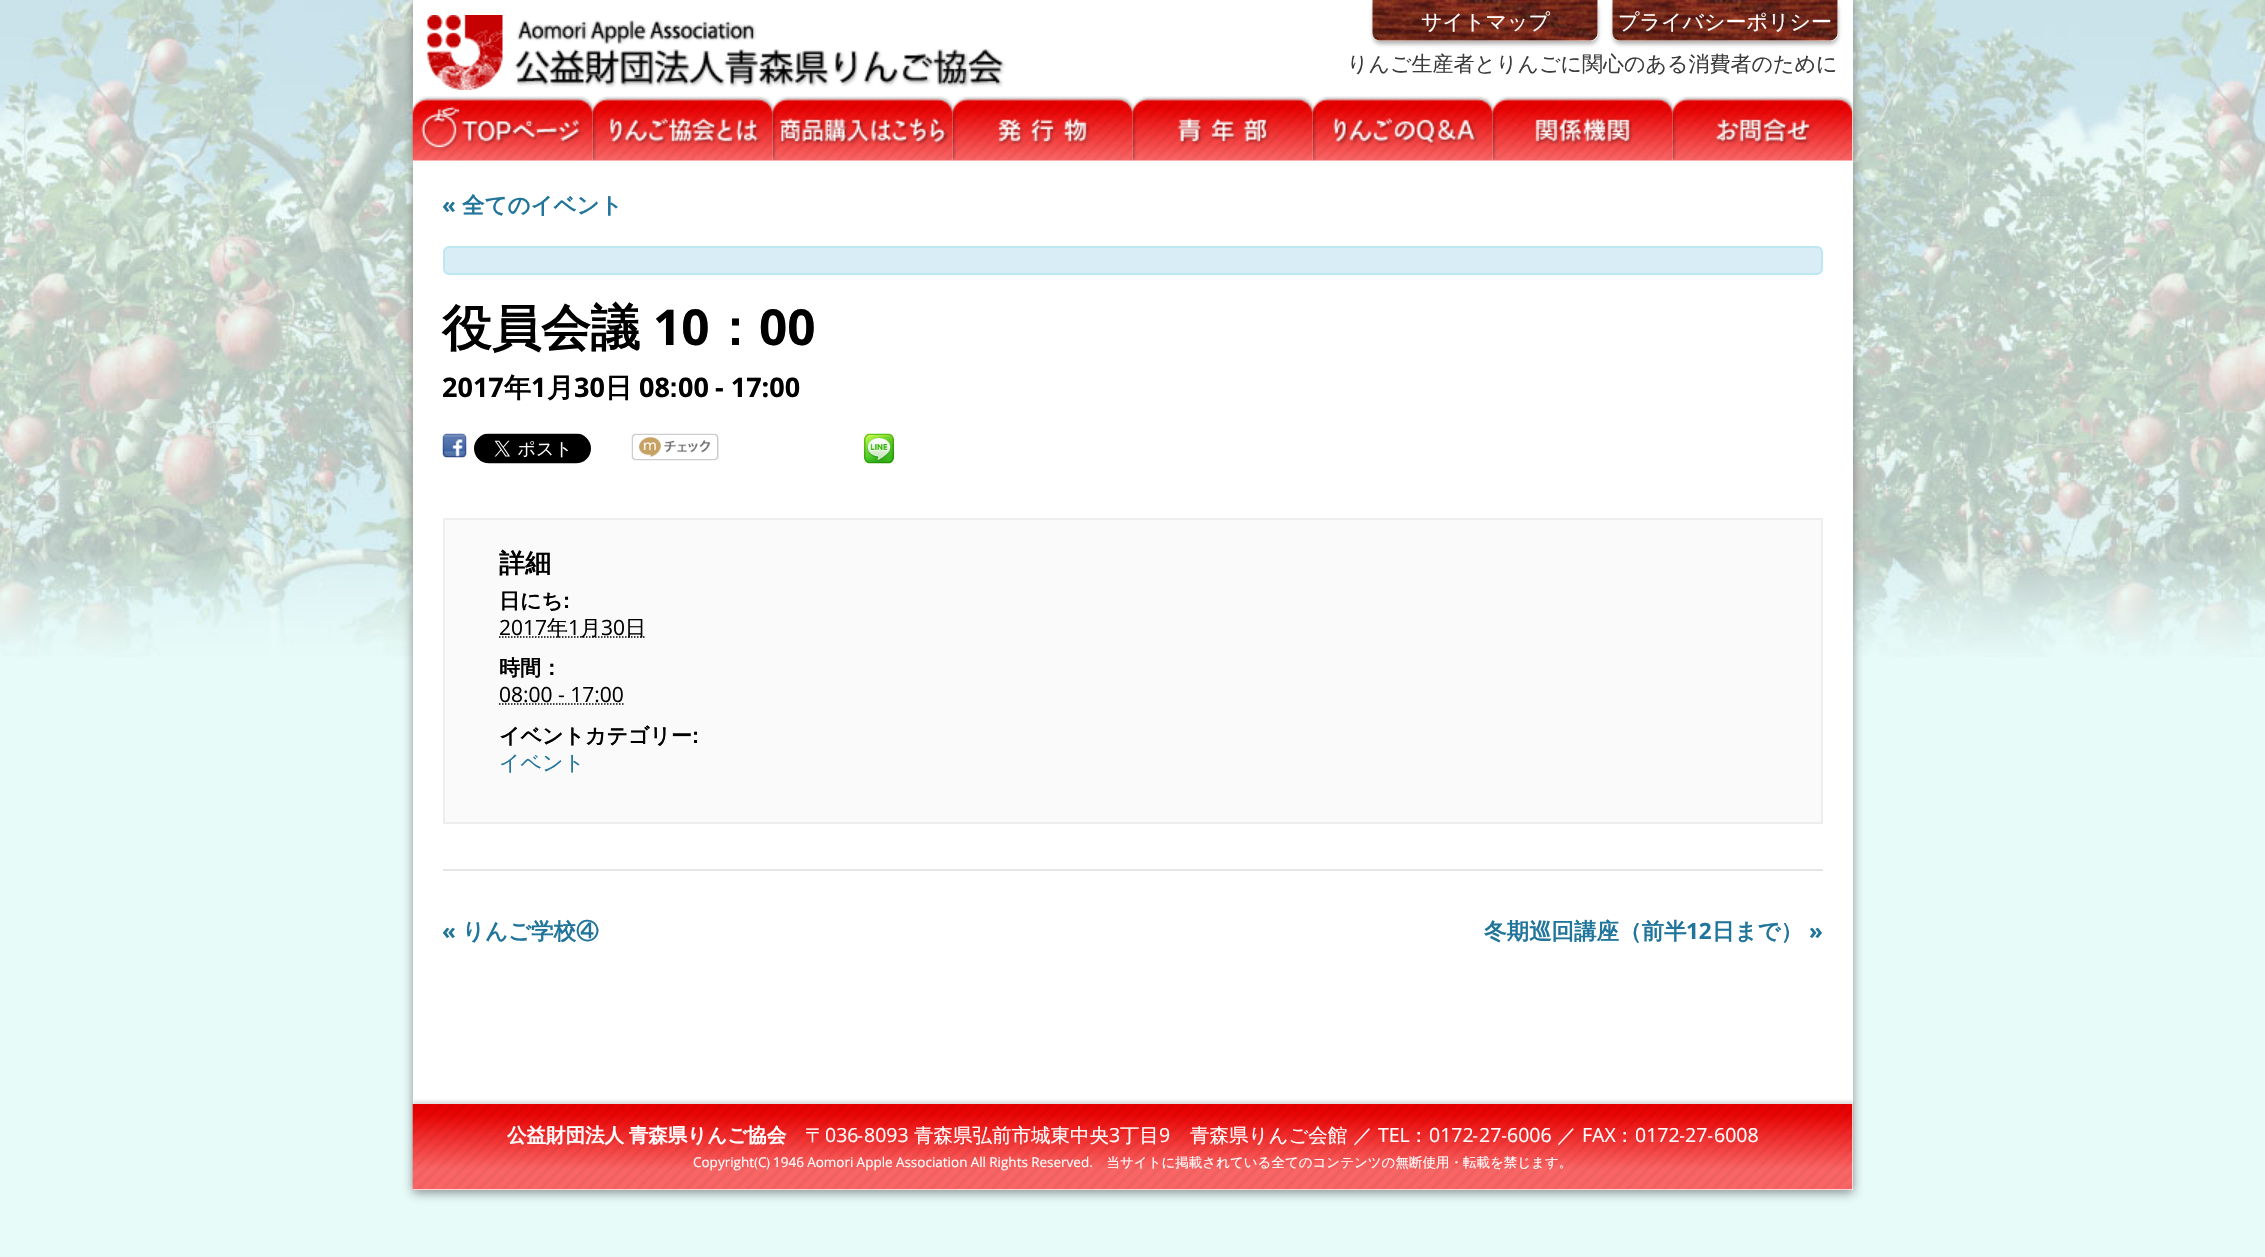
#include "include/core/SkBlurTypes.h"
#include "include/core/SkCanvas.h"
#include "include/core/SkData.h"
#include "include/core/SkFont.h"
#include "include/core/SkFontMgr.h"
#include "include/core/SkImage.h"
#include "include/core/SkMaskFilter.h"
#include "include/core/SkPaint.h"
#include "include/core/SkPathBuilder.h"
#include "include/core/SkTextBlob.h"
#include "include/effects/SkDashPathEffect.h"
#include "include/effects/SkGradientShader.h"
#include "include/utils/SkParsePath.h"

extern sk_sp<SkFontMgr> fontMgr;

void draw(SkCanvas* canvas) {
  SkPaint p;
  p.setAntiAlias(true);
  auto spacedText = [&](const char* s, float x, float y, const SkFont& font, const SkPaint& ink, float letter, float word) {
    std::vector<SkGlyphID> glyphs(font.countText(s, strlen(s), SkTextEncoding::kUTF8));
    std::vector<float> xs(glyphs.size());
    font.textToGlyphs(s, strlen(s), SkTextEncoding::kUTF8, glyphs);
    font.getXPos(glyphs, xs, x);
    float extra = 0;
    for (size_t i = 0; i < glyphs.size(); i++) {
      xs[i] += extra;
      extra += letter + word * (glyphs[i] == font.unicharToGlyph(' '));
    }
    canvas->drawTextBlob(SkTextBlob::MakeFromPosHGlyphs(glyphs, xs, y, font), 0, 0, ink);
  };
  canvas->clear(SkColorSetRGB(231, 251, 249));
  canvas->drawImageRect(SkImages::DeferredFromEncodedData(SkData::MakeFromFileName("images/1.png")), SkRect::MakeLTRB(0, 0, 2265, 657), SkSamplingOptions());
  p.setColor(SkColorSetARGB(179, 100, 100, 100));
  p.setMaskFilter(SkMaskFilter::MakeBlur(kNormal_SkBlurStyle, 5));
  canvas->drawRect(SkRect::MakeLTRB(413, 3, 1853, 1193), p);
  p.setMaskFilter(nullptr);
  p.setColor(SK_ColorWHITE);
  canvas->drawRect(SkRect::MakeLTRB(413, 0, 1853, 1104), p);
  canvas->drawImageRect(SkImages::DeferredFromEncodedData(SkData::MakeFromFileName("images/2.png")), SkRect::MakeLTRB(427, 15, 503, 90), SkSamplingOptions());
  canvas->drawImageRect(SkImages::DeferredFromEncodedData(SkData::MakeFromFileName("images/3.png")), SkRect::MakeLTRB(514, 19, 1006, 88), SkSamplingOptions());
  p.setColor(SkColorSetARGB(128, 100, 100, 100));
  p.setMaskFilter(SkMaskFilter::MakeBlur(kNormal_SkBlurStyle, 2));
  canvas->drawRoundRect(SkRect::MakeLTRB(1373, 3, 1598, 44), 8, 8, p);
  p.setMaskFilter(nullptr);
  p.setColor(SK_ColorWHITE);
  canvas->drawPath(SkPathBuilder().moveTo(1373, 0).lineTo(1598, 0).lineTo(1598, 33).cubicTo(1598, 37.5f, 1594.5f, 41, 1590, 41).lineTo(1381, 41).cubicTo(1376.5f, 41, 1373, 37.5f, 1373, 33).close().detach(), p);
  canvas->drawImageRect(SkImages::DeferredFromEncodedData(SkData::MakeFromFileName("images/4.png")), SkRect::MakeLTRB(1372, 0, 1598, 41), SkSamplingOptions());
  p.setColor(SkColorSetARGB(128, 100, 100, 100));
  p.setMaskFilter(SkMaskFilter::MakeBlur(kNormal_SkBlurStyle, 2));
  canvas->drawRoundRect(SkRect::MakeLTRB(1613, 3, 1838, 44), 8, 8, p);
  p.setMaskFilter(nullptr);
  p.setColor(SK_ColorWHITE);
  canvas->drawPath(SkPathBuilder().moveTo(1613, 0).lineTo(1838, 0).lineTo(1838, 33).cubicTo(1838, 37.5f, 1834.5f, 41, 1830, 41).lineTo(1621, 41).cubicTo(1616.5f, 41, 1613, 37.5f, 1613, 33).close().detach(), p);
  canvas->drawImageRect(SkImages::DeferredFromEncodedData(SkData::MakeFromFileName("images/5.png")), SkRect::MakeLTRB(1612, 0, 1838, 41), SkSamplingOptions());
  canvas->drawImageRect(SkImages::DeferredFromEncodedData(SkData::MakeFromFileName("images/6.png")), SkRect::MakeLTRB(412, 96, 593, 161), SkSamplingOptions());
  canvas->drawImageRect(SkImages::DeferredFromEncodedData(SkData::MakeFromFileName("images/7.png")), SkRect::MakeLTRB(592, 96, 773, 161), SkSamplingOptions());
  canvas->drawImageRect(SkImages::DeferredFromEncodedData(SkData::MakeFromFileName("images/8.png")), SkRect::MakeLTRB(772, 96, 953, 161), SkSamplingOptions());
  canvas->drawImageRect(SkImages::DeferredFromEncodedData(SkData::MakeFromFileName("images/9.png")), SkRect::MakeLTRB(952, 96, 1133, 161), SkSamplingOptions());
  canvas->drawImageRect(SkImages::DeferredFromEncodedData(SkData::MakeFromFileName("images/10.png")), SkRect::MakeLTRB(1132, 96, 1313, 161), SkSamplingOptions());
  canvas->drawImageRect(SkImages::DeferredFromEncodedData(SkData::MakeFromFileName("images/11.png")), SkRect::MakeLTRB(1312, 96, 1493, 161), SkSamplingOptions());
  canvas->drawImageRect(SkImages::DeferredFromEncodedData(SkData::MakeFromFileName("images/12.png")), SkRect::MakeLTRB(1492, 96, 1673, 161), SkSamplingOptions());
  canvas->drawImageRect(SkImages::DeferredFromEncodedData(SkData::MakeFromFileName("images/13.png")), SkRect::MakeLTRB(1672, 96, 1853, 161), SkSamplingOptions());
  p.setColor(SkColorSetRGB(217, 237, 247));
  canvas->drawRoundRect(SkRect::MakeLTRB(444, 247, 1822, 274), 5, 5, p);
  p.setStyle(SkPaint::kStroke_Style);
  p.setStrokeWidth(2);
  p.setColor(SkColorSetRGB(188, 232, 241));
  canvas->drawRoundRect(SkRect::MakeLTRB(444, 247, 1822, 274), 5, 5, p);
  canvas->drawImageRect(SkImages::DeferredFromEncodedData(SkData::MakeFromFileName("images/14.png")), SkRect::MakeLTRB(442, 433, 467, 458), SkSamplingOptions());
  canvas->drawImageRect(SkImages::DeferredFromEncodedData(SkData::MakeFromFileName("images/15.png")), SkRect::MakeLTRB(474, 433, 591, 464), SkSamplingOptions());
  canvas->drawImageRect(SkImages::DeferredFromEncodedData(SkData::MakeFromFileName("images/16.png")), SkRect::MakeLTRB(631, 433, 719, 461), SkSamplingOptions());
  canvas->drawImageRect(SkImages::DeferredFromEncodedData(SkData::MakeFromFileName("images/17.png")), SkRect::MakeLTRB(864, 433, 894, 464), SkSamplingOptions());
  p.setStyle(SkPaint::kFill_Style);
  p.setColor(SkColorSetRGB(250, 250, 250));
  canvas->drawRect(SkRect::MakeLTRB(444, 519, 1822, 823), p);
  p.setStyle(SkPaint::kStroke_Style);
  p.setColor(SkColorSetRGB(238, 238, 238));
  canvas->drawRect(SkRect::MakeLTRB(444, 519, 1822, 823), p);
  p.setStrokeWidth(1.5f);
  p.setColor(SK_ColorBLACK);
  p.setPathEffect(SkDashPathEffect::Make({{1.5f, 1.5f}}, 0));
  canvas->drawPath(SkPathBuilder().moveTo(499, 637).lineTo(646, 637).detach(), p);
  p.setPathEffect(nullptr);
  p.setPathEffect(SkDashPathEffect::Make({{1.5f, 1.5f}}, 0));
  canvas->drawPath(SkPathBuilder().moveTo(499, 704).lineTo(624, 704).detach(), p);
  p.setPathEffect(nullptr);
  p.setStyle(SkPaint::kFill_Style);
  p.setColor(SkColorSetRGB(229, 229, 229));
  canvas->drawRect(SkRect::MakeLTRB(443, 869, 1823, 871), p);
  p.setColor(SkColorSetARGB(51, 100, 100, 100));
  p.setMaskFilter(SkMaskFilter::MakeBlur(kNormal_SkBlurStyle, 1.5f));
  canvas->drawRect(SkRect::MakeLTRB(413, 1101, 1853, 1187), p);
  p.setMaskFilter(nullptr);
  p.setColor(SK_ColorWHITE);
  canvas->drawRect(SkRect::MakeLTRB(413, 1104, 1853, 1190), p);
  canvas->drawImageRect(SkImages::DeferredFromEncodedData(SkData::MakeFromFileName("images/18.png")), SkRect::MakeLTRB(412, 1104, 1853, 1190), SkSamplingOptions());
  SkFont font1(fontMgr->matchFamilyStyle("WenQuanYi Zen Hei", SkFontStyle(500, SkFontStyle::kNormal_Width, SkFontStyle::kUpright_Slant)), 21);
  font1.setSubpixel(true);
  canvas->drawString("サイトマップ", 1421, 29, font1, p);
  canvas->drawString("プライバシーポリシー", 1618, 29, font1, p);
  p.setColor(SkColorSetRGB(59, 59, 59));
  canvas->drawString("りんご生産者とりんごに関心のある消費者のために", 1347, 71, font1, p);
  SkFont font2(fontMgr->matchFamilyStyle("Open Sans", SkFontStyle::Bold()), 22.5f);
  font2.setSubpixel(true);
  p.setColor(SkColorSetRGB(33, 117, 155));
  canvas->drawString("«", 442, 213, font2, p);
  SkFont font3(fontMgr->matchFamilyStyle("WenQuanYi Zen Hei", SkFontStyle::Bold()), 22.5f);
  font3.setSubpixel(true);
  canvas->drawString("全てのイベント", 462, 213, font3, p);
  SkFont font4(fontMgr->matchFamilyStyle("WenQuanYi Zen Hei", SkFontStyle::Bold()), 49.5f);
  font4.setSubpixel(true);
  p.setColor(SK_ColorBLACK);
  canvas->drawString("役員会議", 442, 345, font4, p);
  SkFont font5(fontMgr->matchFamilyStyle("Open Sans", SkFontStyle::Bold()), 49.5f);
  font5.setSubpixel(true);
  canvas->drawString("10", 653, 345, font5, p);
  canvas->drawString("：", 710, 345, font4, p);
  canvas->drawString("00", 759, 345, font5, p);
  SkFont font6(fontMgr->matchFamilyStyle("Open Sans", SkFontStyle::Bold()), 27);
  font6.setSubpixel(true);
  canvas->drawString("2017", 442, 397, font6, p);
  SkFont font7(fontMgr->matchFamilyStyle("WenQuanYi Zen Hei", SkFontStyle::Bold()), 27);
  font7.setSubpixel(true);
  canvas->drawString("年", 504, 397, font7, p);
  canvas->drawString("1", 531, 397, font6, p);
  canvas->drawString("月", 547, 397, font7, p);
  canvas->drawString("30", 574, 397, font6, p);
  canvas->drawString("日", 605, 397, font7, p);
  canvas->drawString("08", 639, 397, font6, p);
  canvas->drawString(":", 669, 397, font7, p);
  canvas->drawString("00", 678, 397, font6, p);
  canvas->drawString("- 17:00", 715, 397, font6, p);
  SkFont font8(fontMgr->matchFamilyStyle("WenQuanYi Zen Hei", SkFontStyle::Bold()), 26);
  font8.setSubpixel(true);
  canvas->drawString("詳細", 499, 572, font8, p);
  SkFont font9(fontMgr->matchFamilyStyle("WenQuanYi Zen Hei", SkFontStyle::Bold()), 21);
  font9.setSubpixel(true);
  canvas->drawString("日にち:", 499, 608, font9, p);
  SkFont font10(fontMgr->matchFamilyStyle("Open Sans", SkFontStyle::Normal()), 21);
  font10.setSubpixel(true);
  canvas->drawString("2017", 499, 635, font10, p);
  canvas->drawString("年", 547, 635, font1, p);
  canvas->drawString("1", 568, 635, font10, p);
  canvas->drawString("月", 580, 635, font1, p);
  canvas->drawString("30", 601, 635, font10, p);
  canvas->drawString("日", 625, 635, font1, p);
  canvas->drawString("時間：", 499, 675, font9, p);
  canvas->drawString("08:00 - 17:00", 499, 702, font10, p);
  canvas->drawString("イベントカテゴリー:", 499, 743, font9, p);
  p.setColor(SkColorSetRGB(33, 117, 155));
  canvas->drawString("イベント", 499, 770, font1, p);
  canvas->drawString("«", 442, 939, font2, p);
  canvas->drawString("りんご学校④", 462, 939, font3, p);
  canvas->drawString("冬期巡回講座（前半", 1484, 939, font3, p);
  canvas->drawString("12", 1686, 939, font2, p);
  canvas->drawString("日まで）", 1712, 939, font3, p);
  canvas->drawString("»", 1809, 939, font2, p);
  SkFont font11(fontMgr->matchFamilyStyle("WenQuanYi Zen Hei", SkFontStyle::Bold()), 19.5f);
  font11.setSubpixel(true);
  p.setColor(SK_ColorWHITE);
  spacedText("公益財団法人 青森県りんご協会", 507, 1142, font11, p, 0, -1);
  SkFont font12(fontMgr->matchFamilyStyle("WenQuanYi Zen Hei", SkFontStyle(500, SkFontStyle::kNormal_Width, SkFontStyle::kUpright_Slant)), 19.5f);
  font12.setSubpixel(true);
  canvas->drawString("〒", 805, 1142, font12, p);
  SkFont font13(fontMgr->matchFamilyStyle("Open Sans", SkFontStyle::Normal()), 19.5f);
  font13.setSubpixel(true);
  canvas->drawString("036", 825, 1142, font13, p);
  canvas->drawString("-", 858, 1142, font12, p);
  canvas->drawString("8093", 864, 1142, font13, p);
  canvas->drawString("青森県弘前市城東中央", 914, 1142, font12, p);
  canvas->drawString("3", 1109, 1142, font13, p);
  canvas->drawString("丁目", 1120, 1142, font12, p);
  canvas->drawString("9", 1159, 1142, font13, p);
  canvas->drawString("青森県りんご会館 ／", 1190, 1142, font12, p);
  canvas->drawString("TEL", 1378, 1142, font13, p);
  canvas->drawString("：", 1409, 1142, font12, p);
  canvas->drawString("0172", 1429, 1142, font13, p);
  canvas->drawString("-", 1473, 1142, font12, p);
  canvas->drawString("27", 1479, 1142, font13, p);
  canvas->drawString("-", 1502, 1142, font12, p);
  canvas->drawString("6006", 1507, 1142, font13, p);
  canvas->drawString("／", 1557, 1142, font12, p);
  canvas->drawString("FAX", 1582, 1142, font13, p);
  canvas->drawString("：", 1615, 1142, font12, p);
  canvas->drawString("0172", 1635, 1142, font13, p);
  canvas->drawString("-", 1680, 1142, font12, p);
  canvas->drawString("27", 1685, 1142, font13, p);
  canvas->drawString("-", 1708, 1142, font12, p);
  canvas->drawString("6008", 1714, 1142, font13, p);
  SkFont font14(fontMgr->matchFamilyStyle("Open Sans", SkFontStyle::Normal()), 13.5f);
  font14.setSubpixel(true);
  canvas->drawString("Copyright", 693, 1167, font14, p);
  SkFont font15(fontMgr->matchFamilyStyle("WenQuanYi Zen Hei", SkFontStyle(500, SkFontStyle::kNormal_Width, SkFontStyle::kUpright_Slant)), 13.5f);
  font15.setSubpixel(true);
  canvas->drawString("(", 754, 1167, font15, p);
  canvas->drawString("C", 758, 1167, font14, p);
  canvas->drawString(")", 766, 1167, font15, p);
  spacedText("1946 Aomori Apple Association All Rights Reserved", 773, 1167, font14, p, 0, -0.25f);
  canvas->drawString(".　当サイトに掲載されている全てのコンテンツの無断使用・転載を禁じます。", 1089, 1167, font15, p);
}
